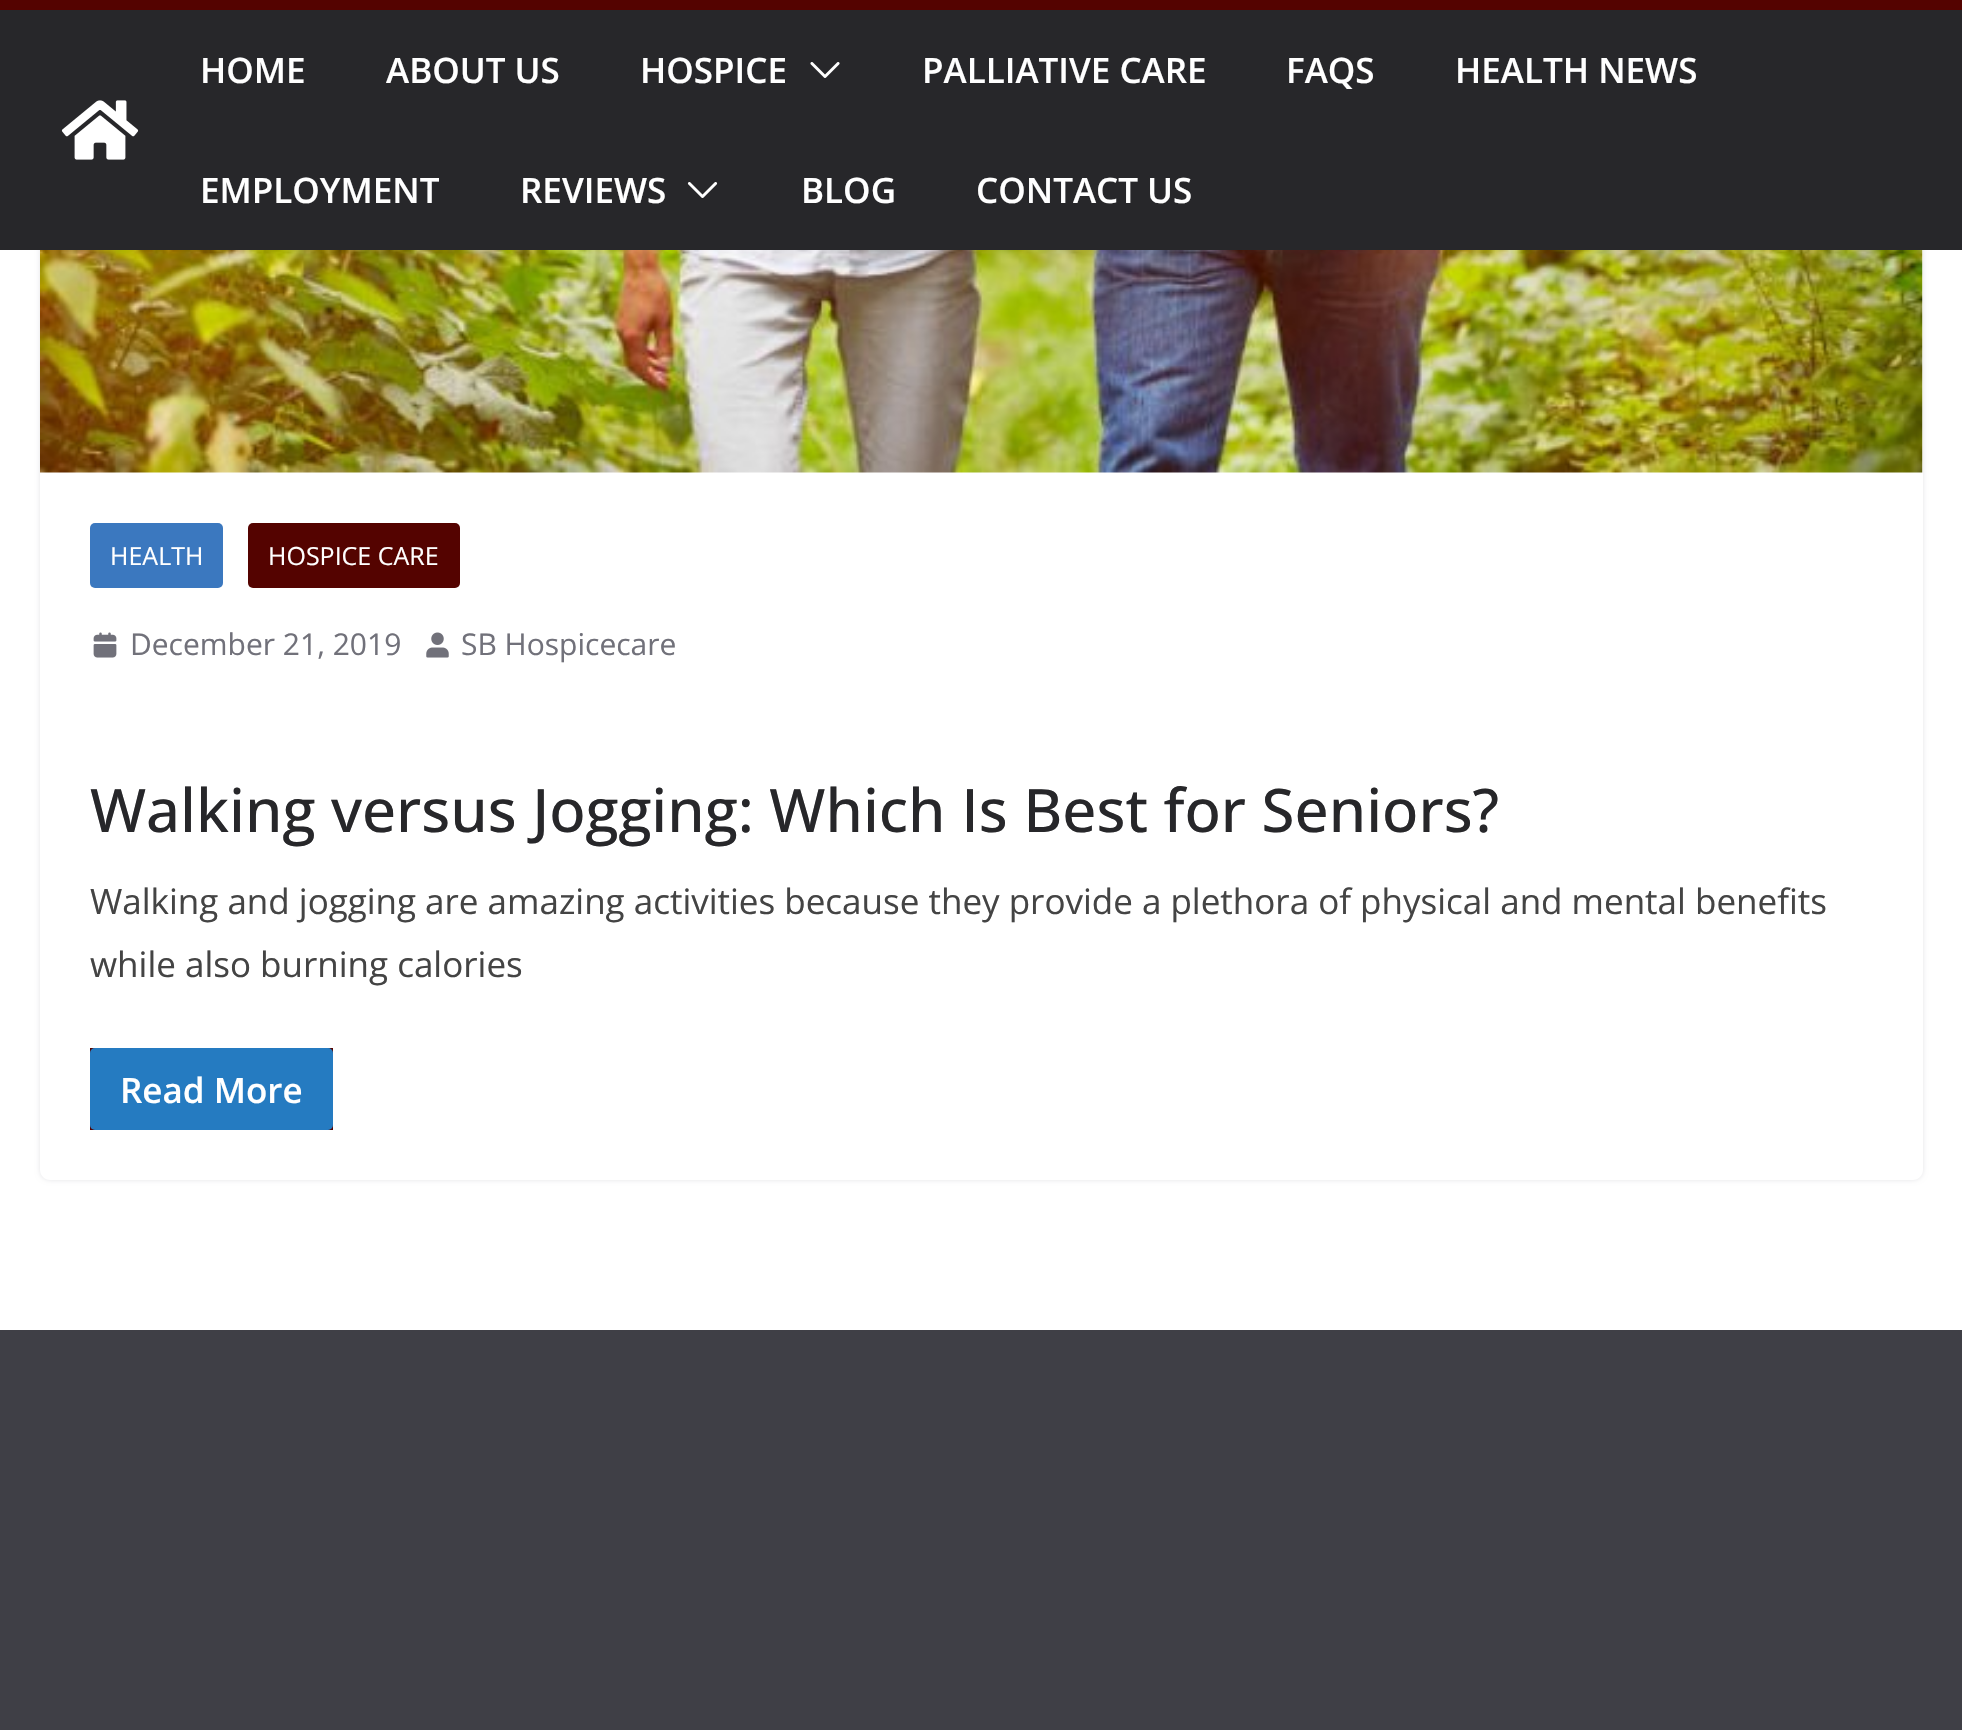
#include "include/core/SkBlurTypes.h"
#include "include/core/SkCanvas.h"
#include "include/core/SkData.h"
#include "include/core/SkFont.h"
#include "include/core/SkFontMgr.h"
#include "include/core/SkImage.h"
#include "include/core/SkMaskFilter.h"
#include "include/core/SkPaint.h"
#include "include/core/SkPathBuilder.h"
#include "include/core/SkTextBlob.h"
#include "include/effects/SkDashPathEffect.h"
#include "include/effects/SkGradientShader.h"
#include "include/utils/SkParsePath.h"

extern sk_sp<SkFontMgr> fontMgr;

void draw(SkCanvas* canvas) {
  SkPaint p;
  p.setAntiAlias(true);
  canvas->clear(SK_ColorWHITE);
  canvas->save();
  canvas->clipPath(SkPathBuilder(SkPathFillType::kEvenOdd).moveTo(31, 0).lineTo(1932, 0).lineTo(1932, 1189).lineTo(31, 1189).close().moveTo(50, -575).lineTo(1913, -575).cubicTo(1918.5f, -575, 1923, -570.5f, 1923, -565).lineTo(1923, 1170).cubicTo(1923, 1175.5f, 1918.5f, 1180, 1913, 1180).lineTo(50, 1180).cubicTo(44.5f, 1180, 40, 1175.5f, 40, 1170).lineTo(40, -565).cubicTo(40, -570.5f, 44.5f, -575, 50, -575).close().detach(), true);
  p.setColor(SkColorSetRGB(228, 228, 231));
  p.setMaskFilter(SkMaskFilter::MakeBlur(kNormal_SkBlurStyle, 2.5f));
  canvas->drawRoundRect(SkRect::MakeLTRB(40, -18, 1923, 1180), 10, 10, p);
  p.setMaskFilter(nullptr);
  canvas->restore();
  p.setColor(SkColorSetRGB(39, 39, 42));
  canvas->drawRect(SkRect::MakeLTRB(0, 10, 1962, 250), p);
  p.setColor(SkColorSetRGB(84, 3, 0));
  canvas->drawRect(SkRect::MakeLTRB(0, 0, 1962, 10), p);
  canvas->drawImageRect(SkImages::DeferredFromEncodedData(SkData::MakeFromFileName("images/1.png")), SkRect::MakeLTRB(61, 100, 139, 160), SkSamplingOptions());
  canvas->drawImageRect(SkImages::DeferredFromEncodedData(SkData::MakeFromFileName("images/2.png")), SkRect::MakeLTRB(810, 62, 840, 78), SkSamplingOptions());
  canvas->drawImageRect(SkImages::DeferredFromEncodedData(SkData::MakeFromFileName("images/3.png")), SkRect::MakeLTRB(687, 182, 718, 198), SkSamplingOptions());
  canvas->drawImageRect(SkImages::DeferredFromEncodedData(SkData::MakeFromFileName("images/4.png")), SkRect::MakeLTRB(40, 250, 1923, 473), SkSamplingOptions());
  p.setColor(SkColorSetRGB(59, 120, 191));
  canvas->drawRoundRect(SkRect::MakeLTRB(90, 523, 223, 588), 5, 5, p);
  p.setColor(SkColorSetRGB(84, 3, 0));
  canvas->drawRoundRect(SkRect::MakeLTRB(248, 523, 460, 588), 5, 5, p);
  canvas->drawImageRect(SkImages::DeferredFromEncodedData(SkData::MakeFromFileName("images/5.png")), SkRect::MakeLTRB(93, 632, 117, 658), SkSamplingOptions());
  canvas->drawImageRect(SkImages::DeferredFromEncodedData(SkData::MakeFromFileName("images/6.png")), SkRect::MakeLTRB(426, 632, 449, 658), SkSamplingOptions());
  canvas->drawRect(SkRect::MakeLTRB(90, 1048, 333, 1130), p);
  p.setColor(SkColorSetRGB(37, 123, 193));
  canvas->drawRoundRect(SkRect::MakeLTRB(90, 1048, 333, 1130), 5, 5, p);
  p.setColor(SkColorSetRGB(63, 63, 70));
  canvas->drawRect(SkRect::MakeLTRB(0, 1330, 1962, 1730), p);
  SkFont font1(fontMgr->matchFamilyStyle("Open Sans", SkFontStyle(600, SkFontStyle::kNormal_Width, SkFontStyle::kUpright_Slant)), 35);
  font1.setSubpixel(true);
  p.setColor(SK_ColorWHITE);
  canvas->drawString("HOME", 200, 83, font1, p);
  canvas->drawString("ABOUT US", 386, 83, font1, p);
  canvas->drawString("HOSPICE", 640, 83, font1, p);
  canvas->drawString("PALLIATIVE CARE", 922, 83, font1, p);
  canvas->drawString("FAQS", 1286, 83, font1, p);
  canvas->drawString("HEALTH NEWS", 1455, 83, font1, p);
  canvas->drawString("EMPLOYMENT", 200, 203, font1, p);
  canvas->drawString("REVIEWS", 520, 203, font1, p);
  canvas->drawString("BLOG", 801, 203, font1, p);
  canvas->drawString("CONTACT US", 976, 203, font1, p);
  SkFont font2(fontMgr->matchFamilyStyle("Open Sans", SkFontStyle::Normal()), 25);
  font2.setSubpixel(true);
  canvas->drawString("HEALTH", 110, 565, font2, p);
  canvas->drawString("HOSPICE CARE", 268, 565, font2, p);
  SkFont font3(fontMgr->matchFamilyStyle("Open Sans", SkFontStyle::Normal()), 30);
  font3.setSubpixel(true);
  p.setColor(SkColorSetRGB(113, 113, 122));
  canvas->drawString("December 21, 2019", 130, 655, font3, p);
  canvas->drawString("SB Hospicecare", 461, 655, font3, p);
  SkFont font4(fontMgr->matchFamilyStyle("Open Sans", SkFontStyle(500, SkFontStyle::kNormal_Width, SkFontStyle::kUpright_Slant)), 60);
  font4.setSubpixel(true);
  p.setColor(SkColorSetRGB(39, 39, 42));
  canvas->drawString("Walking versus Jogging: Which Is Best for Seniors?", 90, 832, font4, p);
  SkFont font5(fontMgr->matchFamilyStyle("Open Sans", SkFontStyle::Normal()), 35);
  font5.setSubpixel(true);
  p.setColor(SkColorSetRGB(68, 68, 68));
  canvas->drawString("Walking and jogging are amazing activities because they provide a plethora of physical and mental benefits", 90, 914, font5, p);
  canvas->drawString("while also burning calories", 90, 977, font5, p);
  p.setColor(SK_ColorWHITE);
  canvas->drawString("Read More", 120, 1103, font1, p);
}
